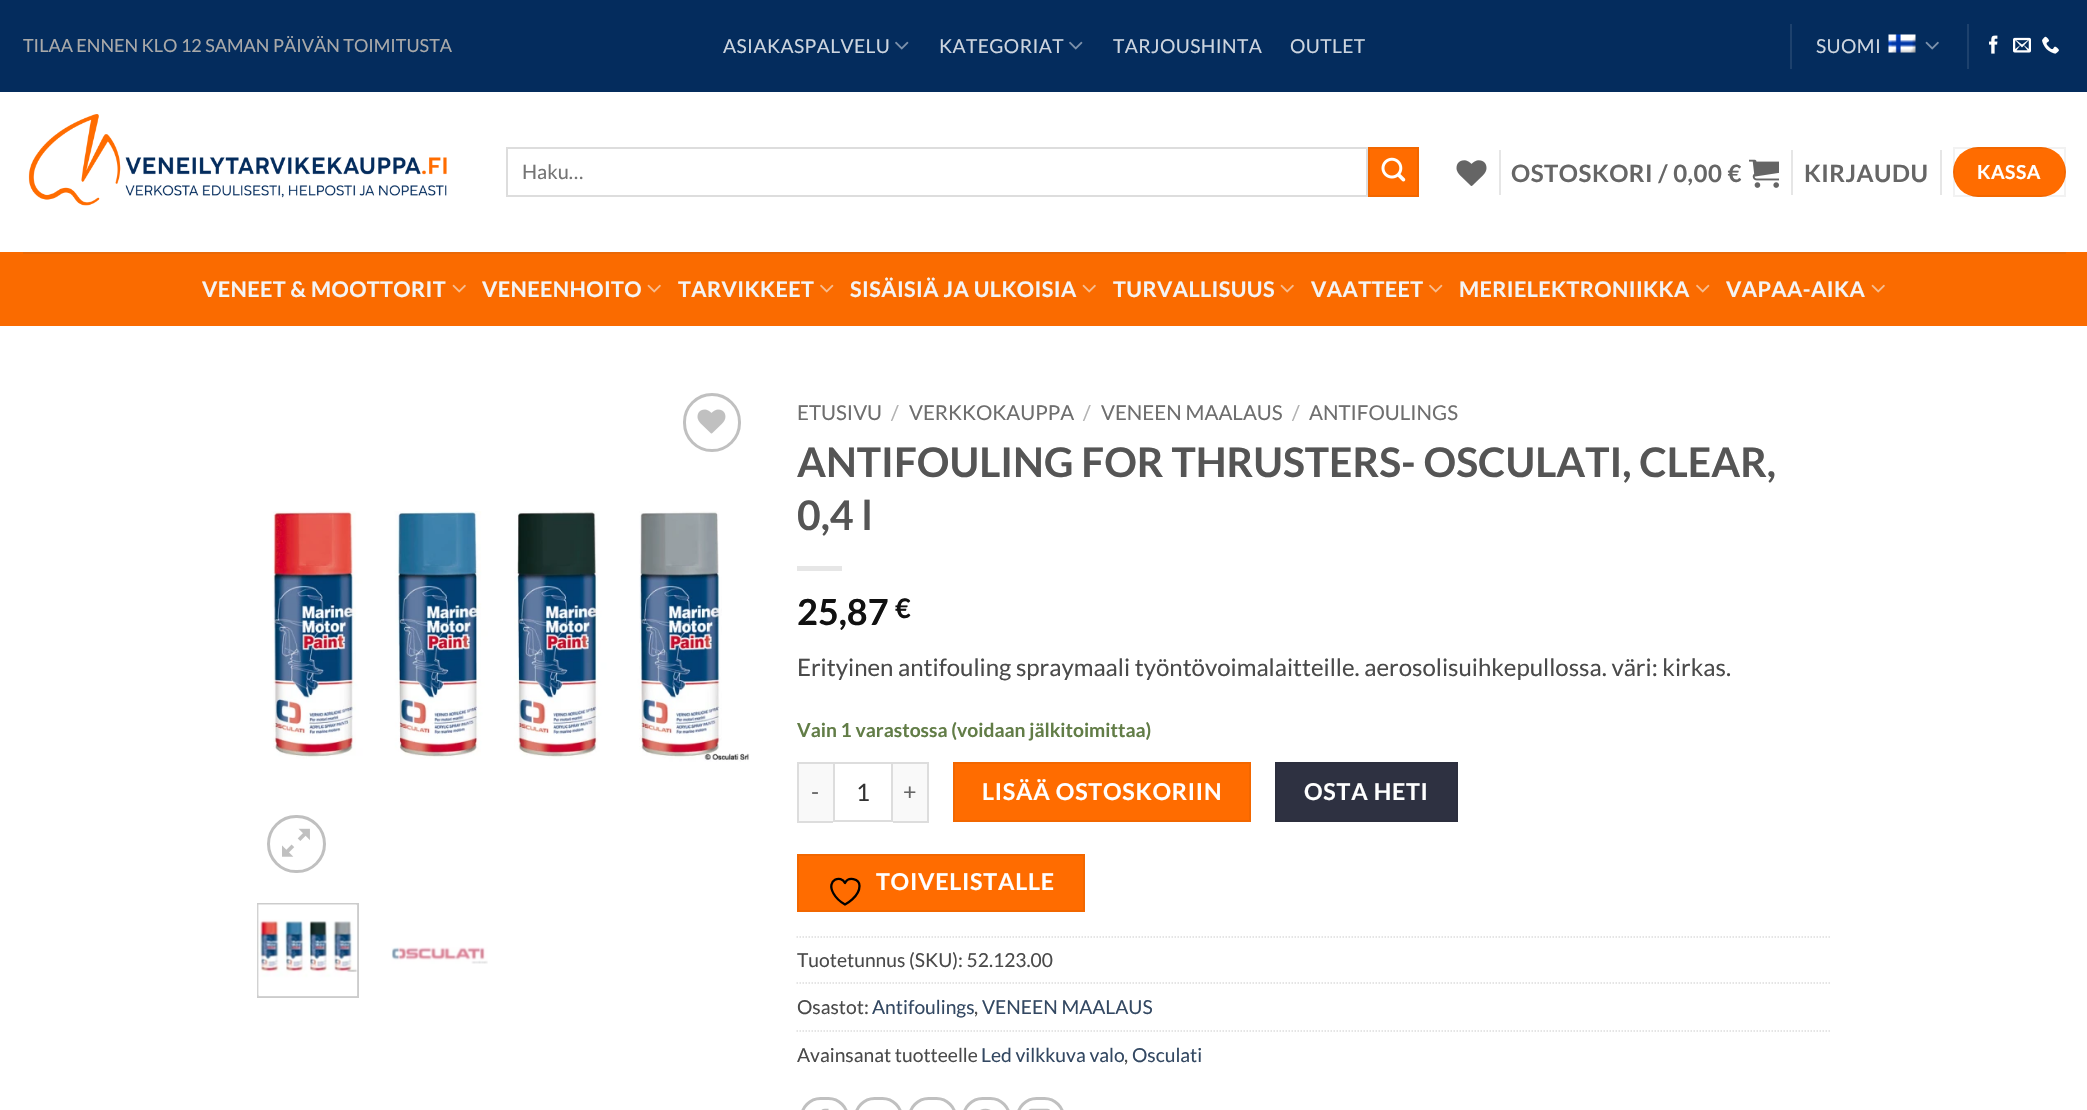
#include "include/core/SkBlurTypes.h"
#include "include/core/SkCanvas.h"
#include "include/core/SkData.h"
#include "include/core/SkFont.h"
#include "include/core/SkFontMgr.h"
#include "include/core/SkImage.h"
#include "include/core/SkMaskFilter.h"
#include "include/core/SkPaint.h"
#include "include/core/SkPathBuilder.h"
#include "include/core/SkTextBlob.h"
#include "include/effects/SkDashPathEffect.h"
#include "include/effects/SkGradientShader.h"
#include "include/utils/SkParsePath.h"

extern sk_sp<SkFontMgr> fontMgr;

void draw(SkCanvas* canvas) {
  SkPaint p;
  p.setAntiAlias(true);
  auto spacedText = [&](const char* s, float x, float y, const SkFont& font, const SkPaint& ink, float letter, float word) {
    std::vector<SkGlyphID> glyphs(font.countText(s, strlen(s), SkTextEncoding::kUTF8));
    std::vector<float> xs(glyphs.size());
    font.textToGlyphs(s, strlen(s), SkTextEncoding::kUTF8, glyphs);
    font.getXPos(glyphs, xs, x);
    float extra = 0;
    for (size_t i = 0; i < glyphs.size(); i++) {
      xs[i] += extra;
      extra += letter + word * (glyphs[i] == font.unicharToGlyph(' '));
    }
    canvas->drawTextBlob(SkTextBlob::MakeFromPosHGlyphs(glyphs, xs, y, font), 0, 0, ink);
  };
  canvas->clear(SK_ColorWHITE);
  p.setColor(SkColorSetRGB(4, 44, 93));
  canvas->drawRect(SkRect::MakeLTRB(0, 0, 2087, 92), p);
  canvas->drawImageRect(SkImages::DeferredFromEncodedData(SkData::MakeFromFileName("images/1.png")), SkRect::MakeLTRB(895, 41, 909, 50), SkSamplingOptions());
  canvas->drawImageRect(SkImages::DeferredFromEncodedData(SkData::MakeFromFileName("images/1.png")), SkRect::MakeLTRB(1069, 41, 1083, 50), SkSamplingOptions());
  p.setColor(SkColorSetRGB(29, 65, 109));
  canvas->drawRect(SkRect::MakeLTRB(1790, 24, 1792, 69), p);
  canvas->drawImageRect(SkImages::DeferredFromEncodedData(SkData::MakeFromFileName("images/2.png")), SkRect::MakeLTRB(1888, 34, 1916, 53), SkSamplingOptions());
  canvas->drawImageRect(SkImages::DeferredFromEncodedData(SkData::MakeFromFileName("images/3.png")), SkRect::MakeLTRB(1925, 41, 1939, 50), SkSamplingOptions());
  canvas->drawRect(SkRect::MakeLTRB(1967, 24, 1969, 69), p);
  canvas->drawImageRect(SkImages::DeferredFromEncodedData(SkData::MakeFromFileName("images/4.png")), SkRect::MakeLTRB(1989, 35, 1998, 54), SkSamplingOptions());
  canvas->drawImageRect(SkImages::DeferredFromEncodedData(SkData::MakeFromFileName("images/5.png")), SkRect::MakeLTRB(2013, 37, 2031, 53), SkSamplingOptions());
  canvas->drawImageRect(SkImages::DeferredFromEncodedData(SkData::MakeFromFileName("images/6.png")), SkRect::MakeLTRB(2042, 36, 2059, 54), SkSamplingOptions());
  canvas->drawImageRect(SkImages::DeferredFromEncodedData(SkData::MakeFromFileName("images/7.png")), SkRect::MakeLTRB(28, 114, 447, 206), SkSamplingOptions());
  p.setStyle(SkPaint::kStroke_Style);
  p.setStrokeWidth(2);
  p.setColor(SkColorSetRGB(221, 221, 221));
  canvas->drawRect(SkRect::MakeLTRB(507, 148, 1367, 196), p);
  p.setStyle(SkPaint::kFill_Style);
  p.setColor(SkColorSetRGB(255, 108, 0));
  canvas->drawRect(SkRect::MakeLTRB(1369, 148, 1418, 196), p);
  p.setStyle(SkPaint::kStroke_Style);
  p.setColor(SkColorSetRGB(242, 103, 0));
  canvas->drawRect(SkRect::MakeLTRB(1369, 148, 1418, 196), p);
  canvas->drawImageRect(SkImages::DeferredFromEncodedData(SkData::MakeFromFileName("images/8.png")), SkRect::MakeLTRB(1381, 157, 1406, 182), SkSamplingOptions());
  canvas->drawImageRect(SkImages::DeferredFromEncodedData(SkData::MakeFromFileName("images/9.png")), SkRect::MakeLTRB(1456, 160, 1487, 186), SkSamplingOptions());
  p.setStyle(SkPaint::kFill_Style);
  p.setColor(SkColorSetRGB(230, 230, 230));
  canvas->drawRect(SkRect::MakeLTRB(1499, 150, 1501, 195), p);
  canvas->drawImageRect(SkImages::DeferredFromEncodedData(SkData::MakeFromFileName("images/10.png")), SkRect::MakeLTRB(1749, 159, 1779, 188), SkSamplingOptions());
  canvas->drawRect(SkRect::MakeLTRB(1791, 150, 1793, 195), p);
  canvas->drawRect(SkRect::MakeLTRB(1940, 150, 1942, 195), p);
  p.setColor(SkColorSetRGB(255, 108, 0));
  canvas->drawRoundRect(SkRect::MakeLTRB(1953, 147, 2066, 197), 25, 25, p);
  p.setStyle(SkPaint::kStroke_Style);
  p.setColor(SkColorSetARGB(13, 0, 0, 0));
  canvas->drawRect(SkRect::MakeLTRB(1954, 148, 2065, 196), p);
  p.setStyle(SkPaint::kFill_Style);
  p.setColor(SkColorSetRGB(250, 107, 0));
  canvas->drawRect(SkRect::MakeLTRB(0, 252, 2087, 326), p);
  p.setColor(SkColorSetRGB(232, 104, 7));
  canvas->drawRect(SkRect::MakeLTRB(23, 252, 2066, 254), p);
  canvas->drawImageRect(SkImages::DeferredFromEncodedData(SkData::MakeFromFileName("images/11.png")), SkRect::MakeLTRB(452, 284, 466, 293), SkSamplingOptions());
  canvas->drawImageRect(SkImages::DeferredFromEncodedData(SkData::MakeFromFileName("images/11.png")), SkRect::MakeLTRB(647, 284, 661, 293), SkSamplingOptions());
  canvas->drawImageRect(SkImages::DeferredFromEncodedData(SkData::MakeFromFileName("images/12.png")), SkRect::MakeLTRB(820, 284, 834, 293), SkSamplingOptions());
  canvas->drawImageRect(SkImages::DeferredFromEncodedData(SkData::MakeFromFileName("images/11.png")), SkRect::MakeLTRB(1082, 284, 1096, 293), SkSamplingOptions());
  canvas->drawImageRect(SkImages::DeferredFromEncodedData(SkData::MakeFromFileName("images/11.png")), SkRect::MakeLTRB(1280, 284, 1294, 293), SkSamplingOptions());
  canvas->drawImageRect(SkImages::DeferredFromEncodedData(SkData::MakeFromFileName("images/12.png")), SkRect::MakeLTRB(1429, 284, 1443, 293), SkSamplingOptions());
  canvas->drawImageRect(SkImages::DeferredFromEncodedData(SkData::MakeFromFileName("images/12.png")), SkRect::MakeLTRB(1696, 284, 1710, 293), SkSamplingOptions());
  canvas->drawImageRect(SkImages::DeferredFromEncodedData(SkData::MakeFromFileName("images/11.png")), SkRect::MakeLTRB(1871, 284, 1885, 293), SkSamplingOptions());
  p.setStyle(SkPaint::kStroke_Style);
  p.setStrokeWidth(3);
  p.setColor(SkColorSetRGB(192, 192, 192));
  canvas->drawRoundRect(SkRect::MakeLTRB(684.5f, 394.5f, 739.5f, 450.5f), 27.5f, 27.5f, p);
  canvas->drawImageRect(SkImages::DeferredFromEncodedData(SkData::MakeFromFileName("images/13.png")), SkRect::MakeLTRB(697, 409, 726, 434), SkSamplingOptions());
  canvas->drawImageRect(SkImages::DeferredFromEncodedData(SkData::MakeFromFileName("images/14.png")), SkRect::MakeLTRB(271, 511, 750, 762), SkSamplingOptions());
  canvas->drawRoundRect(SkRect::MakeLTRB(268.5f, 816.5f, 324.5f, 871.5f), 27.5f, 27.5f, p);
  canvas->drawImageRect(SkImages::DeferredFromEncodedData(SkData::MakeFromFileName("images/15.png")), SkRect::MakeLTRB(282, 828, 310, 857), SkSamplingOptions());
  p.setStrokeWidth(2);
  p.setColor(SkColorSetRGB(204, 204, 204));
  canvas->drawRect(SkRect::MakeLTRB(258, 904, 358, 997), p);
  canvas->drawImageRect(SkImages::DeferredFromEncodedData(SkData::MakeFromFileName("images/16.png")), SkRect::MakeLTRB(257, 904, 358, 997), SkSamplingOptions());
  canvas->drawImageRect(SkImages::DeferredFromEncodedData(SkData::MakeFromFileName("images/17.png")), SkRect::MakeLTRB(391, 947, 488, 964), SkSamplingOptions());
  p.setStyle(SkPaint::kFill_Style);
  p.setColor(SkColorSetRGB(230, 230, 230));
  canvas->drawRect(SkRect::MakeLTRB(797, 566, 842, 571), p);
  p.setColor(SkColorSetRGB(249, 249, 249));
  canvas->drawRect(SkRect::MakeLTRB(799, 764, 833, 821), p);
  p.setColor(SkColorSetRGB(221, 221, 221));
  canvas->drawRect(SkRect::MakeLTRB(797, 762, 833, 764), p);
  canvas->drawRect(SkRect::MakeLTRB(797, 821, 833, 823), p);
  canvas->drawRect(SkRect::MakeLTRB(797, 762, 799, 822), p);
  p.setStyle(SkPaint::kStroke_Style);
  canvas->drawRect(SkRect::MakeLTRB(834, 763, 892, 821), p);
  p.setStyle(SkPaint::kFill_Style);
  p.setColor(SkColorSetRGB(249, 249, 249));
  canvas->drawRect(SkRect::MakeLTRB(893, 764, 927, 821), p);
  p.setColor(SkColorSetRGB(221, 221, 221));
  canvas->drawRect(SkRect::MakeLTRB(893, 762, 929, 764), p);
  canvas->drawRect(SkRect::MakeLTRB(927, 762, 929, 822), p);
  canvas->drawRect(SkRect::MakeLTRB(893, 821, 929, 823), p);
  p.setColor(SkColorSetRGB(255, 108, 0));
  canvas->drawRect(SkRect::MakeLTRB(954, 763, 1250, 821), p);
  p.setStyle(SkPaint::kStroke_Style);
  p.setColor(SkColorSetRGB(242, 103, 0));
  canvas->drawRect(SkRect::MakeLTRB(954, 763, 1250, 821), p);
  p.setStyle(SkPaint::kFill_Style);
  p.setColor(SkColorSetRGB(46, 49, 65));
  canvas->drawRect(SkRect::MakeLTRB(1276, 763, 1457, 821), p);
  p.setStyle(SkPaint::kStroke_Style);
  p.setColor(SkColorSetRGB(44, 47, 62));
  canvas->drawRect(SkRect::MakeLTRB(1276, 763, 1457, 821), p);
  p.setStyle(SkPaint::kFill_Style);
  p.setColor(SkColorSetRGB(255, 108, 0));
  canvas->drawRect(SkRect::MakeLTRB(798, 855, 1084, 911), p);
  p.setStyle(SkPaint::kStroke_Style);
  p.setColor(SkColorSetRGB(242, 103, 0));
  canvas->drawRect(SkRect::MakeLTRB(798, 855, 1084, 911), p);
  p.setStrokeWidth(2.3f);
  p.setStrokeCap(SkPaint::kRound_Cap);
  p.setStrokeJoin(SkPaint::kRound_Join);
  p.setColor(SK_ColorBLACK);
  canvas->drawPath(SkPathBuilder().moveTo(859.5f, 886).cubicTo(859.5f, 878, 848, 876.5f, 845, 883).cubicTo(841.5f, 874.5f, 825.5f, 879.5f, 833.5f, 893.5f).cubicTo(836, 898, 840.5f, 902, 845, 904.5f).cubicTo(845, 904.5f, 859.5f, 897, 859.5f, 886).close().detach(), p);
  p.setStrokeWidth(1.5f);
  p.setStrokeCap(SkPaint::kButt_Cap);
  p.setStrokeJoin(SkPaint::kMiter_Join);
  p.setColor(SkColorSetRGB(221, 221, 221));
  p.setPathEffect(SkDashPathEffect::Make({{1.5f, 1.5f}}, 0));
  canvas->drawPath(SkPathBuilder().moveTo(796.5f, 937).lineTo(1831.5f, 937).detach(), p);
  p.setPathEffect(nullptr);
  p.setPathEffect(SkDashPathEffect::Make({{1.5f, 1.5f}}, 0));
  canvas->drawPath(SkPathBuilder().moveTo(796.5f, 983).lineTo(1831.5f, 983).detach(), p);
  p.setPathEffect(nullptr);
  p.setPathEffect(SkDashPathEffect::Make({{1.5f, 1.5f}}, 0));
  canvas->drawPath(SkPathBuilder().moveTo(796.5f, 1031).lineTo(1831.5f, 1031).detach(), p);
  p.setPathEffect(nullptr);
  p.setStrokeWidth(3);
  p.setColor(SkColorSetRGB(192, 192, 192));
  canvas->drawRoundRect(SkRect::MakeLTRB(801.5f, 1098.5f, 847.5f, 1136.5f), 23, 23, p);
  canvas->drawImageRect(SkImages::DeferredFromEncodedData(SkData::MakeFromFileName("images/18.png")), SkRect::MakeLTRB(821, 1108, 829, 1110), SkSamplingOptions());
  canvas->drawRoundRect(SkRect::MakeLTRB(855.5f, 1098.5f, 901.5f, 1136.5f), 23, 23, p);
  canvas->drawRoundRect(SkRect::MakeLTRB(909.5f, 1098.5f, 955.5f, 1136.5f), 23, 23, p);
  canvas->drawRoundRect(SkRect::MakeLTRB(963.5f, 1098.5f, 1009.5f, 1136.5f), 23, 23, p);
  canvas->drawImageRect(SkImages::DeferredFromEncodedData(SkData::MakeFromFileName("images/19.png")), SkRect::MakeLTRB(980, 1108, 991, 1110), SkSamplingOptions());
  canvas->drawRoundRect(SkRect::MakeLTRB(1017.5f, 1098.5f, 1063.5f, 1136.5f), 23, 23, p);
  canvas->drawImageRect(SkImages::DeferredFromEncodedData(SkData::MakeFromFileName("images/20.png")), SkRect::MakeLTRB(1028, 1108, 1050, 1110), SkSamplingOptions());
  SkFont font1(fontMgr->matchFamilyStyle("Lato", SkFontStyle::Normal()), 18);
  font1.setSubpixel(true);
  p.setStyle(SkPaint::kFill_Style);
  p.setColor(SkColorSetRGB(169, 169, 169));
  canvas->drawString("TILAA ENNEN KLO 12 SAMAN PÄIVÄN TOIMITUSTA", 23, 52, font1, p);
  SkFont font2(fontMgr->matchFamilyStyle("Lato", SkFontStyle::Normal()), 19.25f);
  font2.setSubpixel(true);
  p.setColor(SkColorSetRGB(205, 213, 223));
  spacedText("ASIAKASPALVELU", 723, 53, font2, p, 0.4f, 0);
  spacedText("KATEGORIAT", 939, 53, font2, p, 0.4f, 0);
  spacedText("TARJOUSHINTA", 1113, 53, font2, p, 0.4f, 0);
  spacedText("OUTLET", 1290, 53, font2, p, 0.4f, 0);
  spacedText("SUOMI", 1816, 53, font2, p, 0.4f, 0);
  SkFont font3(fontMgr->matchFamilyStyle("Lato", SkFontStyle::Normal()), 20);
  font3.setSubpixel(true);
  p.setColor(SkColorSetRGB(117, 117, 117));
  canvas->drawString("Haku…", 522, 179, font3, p);
  SkFont font4(fontMgr->matchFamilyStyle("Lato", SkFontStyle::Bold()), 24);
  font4.setSubpixel(true);
  p.setColor(SkColorSetRGB(102, 102, 102));
  spacedText("OSTOSKORI / 0,00 €", 1511, 182, font4, p, 0.5f, 0);
  spacedText("KIRJAUDU", 1804, 182, font4, p, 0.5f, 0);
  SkFont font5(fontMgr->matchFamilyStyle("Lato", SkFontStyle::Bold()), 19.25f);
  font5.setSubpixel(true);
  p.setColor(SK_ColorWHITE);
  spacedText("KASSA", 1977, 179, font5, p, 0.5f, 0);
  SkFont font6(fontMgr->matchFamilyStyle("Lato", SkFontStyle::Bold()), 21.6f);
  font6.setSubpixel(true);
  p.setColor(SkColorSetRGB(244, 244, 244));
  spacedText("VENEET & MOOTTORIT", 202, 297, font6, p, 0.4f, 0);
  spacedText("VENEENHOITO", 482, 297, font6, p, 0.4f, 0);
  spacedText("TARVIKKEET", 678, 297, font6, p, 0.4f, 0);
  spacedText("SISÄISIÄ JA ULKOISIA", 850, 297, font6, p, 0.4f, 0);
  spacedText("TURVALLISUUS", 1113, 297, font6, p, 0.4f, 0);
  spacedText("VAATTEET", 1311, 297, font6, p, 0.4f, 0);
  spacedText("MERIELEKTRONIIKKA", 1459, 297, font6, p, 0.4f, 0);
  spacedText("VAPAA-AIKA", 1726, 297, font6, p, 0.4f, 0);
  SkFont font7(fontMgr->matchFamilyStyle("Lato", SkFontStyle::Normal()), 20.5f);
  font7.setSubpixel(true);
  p.setColor(SkColorSetRGB(110, 110, 110));
  canvas->drawString("ETUSIVU", 797, 420, font7, p);
  p.setColor(SkColorSetRGB(178, 178, 178));
  canvas->drawString("/", 891, 420, font7, p);
  p.setColor(SkColorSetRGB(110, 110, 110));
  canvas->drawString("VERKKOKAUPPA", 909, 420, font7, p);
  p.setColor(SkColorSetRGB(178, 178, 178));
  canvas->drawString("/", 1083, 420, font7, p);
  p.setColor(SkColorSetRGB(110, 110, 110));
  canvas->drawString("VENEEN MAALAUS", 1101, 420, font7, p);
  p.setColor(SkColorSetRGB(178, 178, 178));
  canvas->drawString("/", 1292, 420, font7, p);
  p.setColor(SkColorSetRGB(110, 110, 110));
  canvas->drawString("ANTIFOULINGS", 1309, 420, font7, p);
  SkFont font8(fontMgr->matchFamilyStyle("Lato", SkFontStyle::Bold()), 40.8f);
  font8.setSubpixel(true);
  p.setColor(SkColorSetRGB(85, 85, 85));
  canvas->drawString("ANTIFOULING FOR THRUSTERS- OSCULATI, CLEAR,", 797, 477, font8, p);
  canvas->drawString("0,4 l", 797, 530, font8, p);
  SkFont font9(fontMgr->matchFamilyStyle("Lato", SkFontStyle::Bold()), 36);
  font9.setSubpixel(true);
  p.setColor(SkColorSetRGB(17, 17, 17));
  canvas->drawString("25,87", 797, 625, font9, p);
  SkFont font10(fontMgr->matchFamilyStyle("Lato", SkFontStyle::Bold()), 27);
  font10.setSubpixel(true);
  canvas->drawString("€", 895, 618, font10, p);
  SkFont font11(fontMgr->matchFamilyStyle("Lato", SkFontStyle::Normal()), 24);
  font11.setSubpixel(true);
  p.setColor(SkColorSetRGB(74, 74, 74));
  canvas->drawString("Erityinen antifouling spraymaali työntövoimalaitteille. aerosolisuihkepullossa. väri: kirkas.", 797, 676, font11, p);
  p.setColor(SkColorSetRGB(98, 125, 71));
  canvas->drawString("Vain 1 varastossa (voidaan jälkitoimittaa)", 797, 737, font5, p);
  SkFont font12(fontMgr->matchFamilyStyle("Lato", SkFontStyle::Normal()), 23.25f);
  font12.setSubpixel(true);
  p.setColor(SkColorSetRGB(102, 102, 102));
  spacedText("-", 811, 800, font12, p, 0.75f, 0);
  p.setColor(SkColorSetRGB(51, 51, 51));
  canvas->drawString("1", 856, 801, font11, p);
  p.setColor(SkColorSetRGB(102, 102, 102));
  spacedText("+", 903, 800, font12, p, 0.75f, 0);
  SkFont font13(fontMgr->matchFamilyStyle("Lato", SkFontStyle::Bold()), 23.25f);
  font13.setSubpixel(true);
  p.setColor(SK_ColorWHITE);
  spacedText("LISÄÄ OSTOSKORIIN", 982, 800, font13, p, 0.75f, 0);
  spacedText("OSTA HETI", 1304, 800, font13, p, 0.75f, 0);
  spacedText("TOIVELISTALLE", 876, 890, font13, p, 0.75f, 0);
  p.setColor(SkColorSetRGB(74, 74, 74));
  canvas->drawString("Tuotetunnus (SKU): 52.123.00", 797, 967, font2, p);
  canvas->drawString("Osastot:", 797, 1014, font2, p);
  p.setColor(SkColorSetRGB(51, 72, 98));
  canvas->drawString("Antifoulings", 872, 1014, font2, p);
  p.setColor(SkColorSetRGB(74, 74, 74));
  canvas->drawString(",", 974, 1014, font2, p);
  p.setColor(SkColorSetRGB(51, 72, 98));
  canvas->drawString("VENEEN MAALAUS", 982, 1014, font2, p);
  p.setColor(SkColorSetRGB(74, 74, 74));
  canvas->drawString("Avainsanat tuotteelle", 797, 1062, font2, p);
  p.setColor(SkColorSetRGB(51, 72, 98));
  canvas->drawString("Led vilkkuva valo", 981, 1062, font2, p);
  p.setColor(SkColorSetRGB(74, 74, 74));
  canvas->drawString(",", 1124, 1062, font2, p);
  p.setColor(SkColorSetRGB(51, 72, 98));
  canvas->drawString("Osculati", 1132, 1062, font2, p);
}
